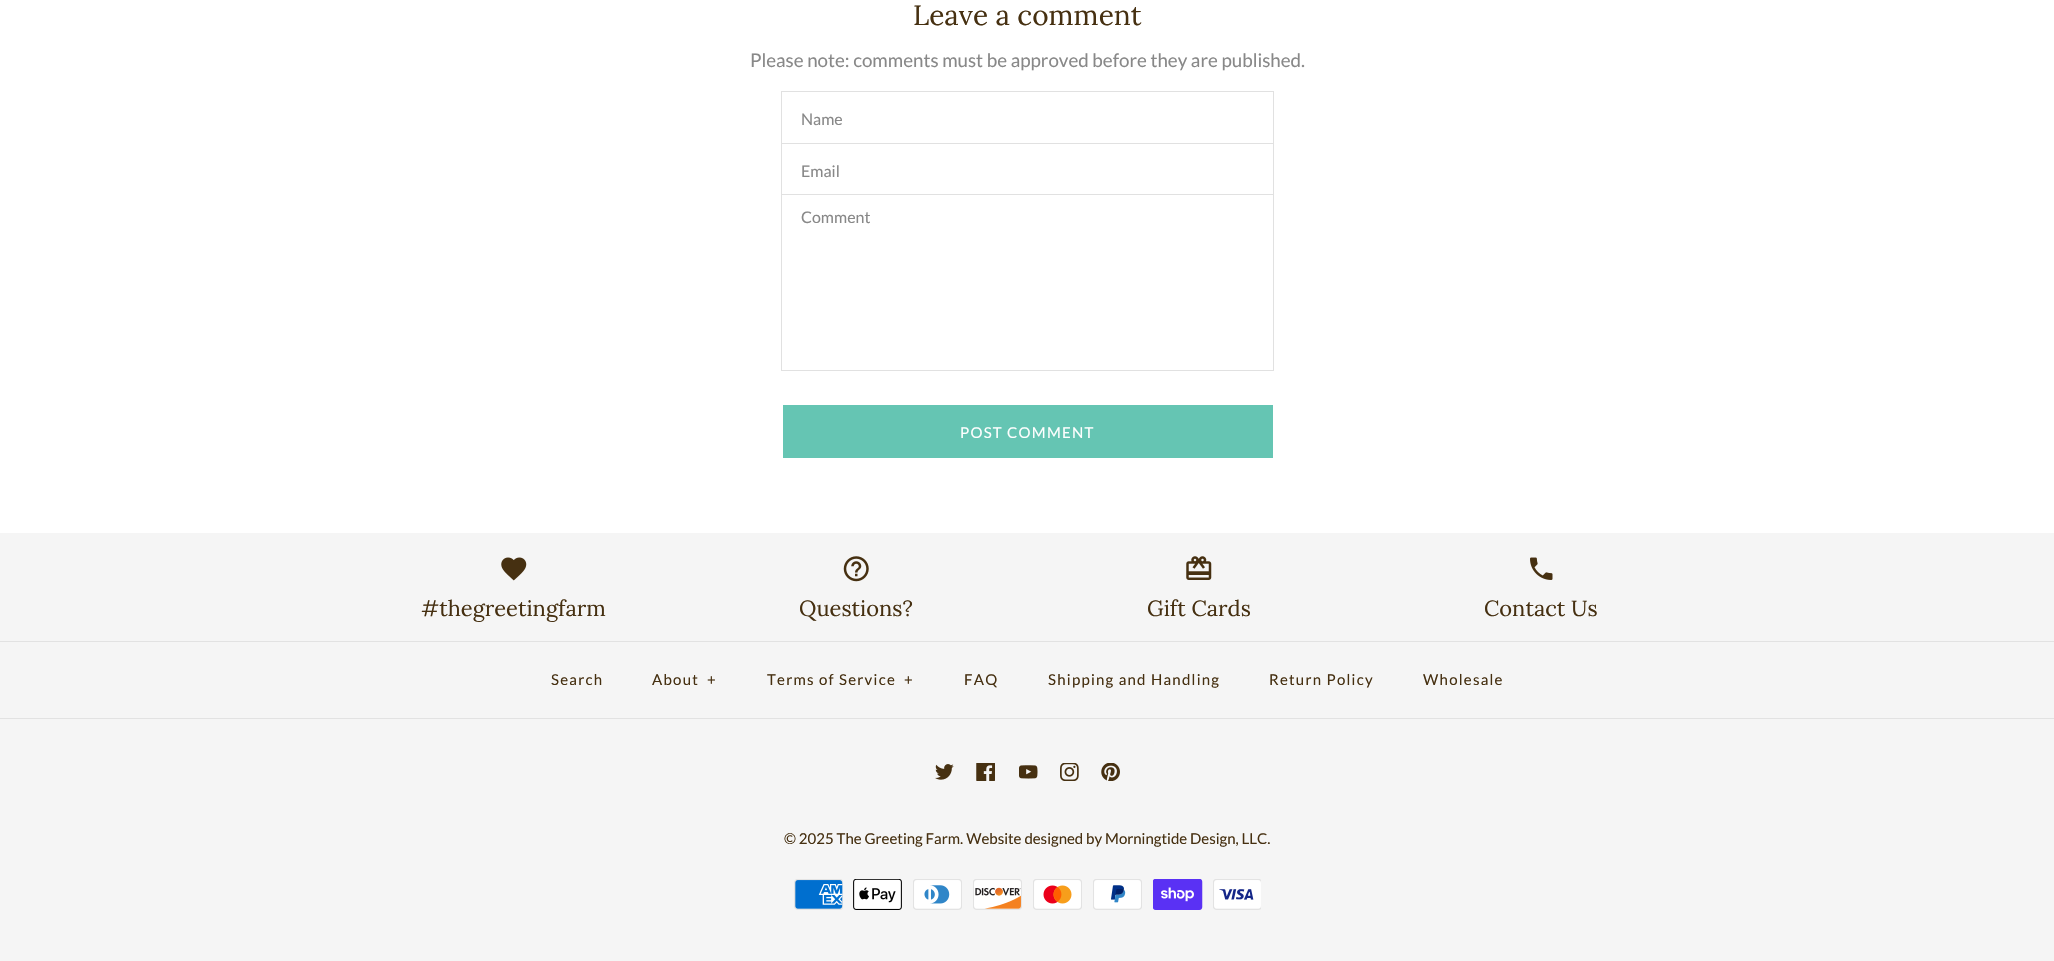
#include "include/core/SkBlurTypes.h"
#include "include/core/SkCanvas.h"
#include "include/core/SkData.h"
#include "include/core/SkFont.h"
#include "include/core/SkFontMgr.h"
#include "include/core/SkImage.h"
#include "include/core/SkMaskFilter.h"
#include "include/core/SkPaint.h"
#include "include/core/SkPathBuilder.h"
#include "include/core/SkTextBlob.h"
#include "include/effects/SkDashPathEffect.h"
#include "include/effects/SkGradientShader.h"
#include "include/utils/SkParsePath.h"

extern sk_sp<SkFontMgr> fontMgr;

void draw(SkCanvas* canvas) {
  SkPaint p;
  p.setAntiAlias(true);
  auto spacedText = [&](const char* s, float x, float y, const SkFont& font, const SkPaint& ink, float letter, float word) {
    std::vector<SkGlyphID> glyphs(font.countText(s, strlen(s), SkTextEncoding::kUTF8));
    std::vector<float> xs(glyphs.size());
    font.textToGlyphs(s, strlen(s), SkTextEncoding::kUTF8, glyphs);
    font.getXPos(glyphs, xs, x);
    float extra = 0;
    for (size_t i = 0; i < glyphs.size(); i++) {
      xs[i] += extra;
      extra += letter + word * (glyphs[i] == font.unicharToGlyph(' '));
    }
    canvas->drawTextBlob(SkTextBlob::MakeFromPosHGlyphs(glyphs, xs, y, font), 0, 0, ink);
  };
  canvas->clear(SK_ColorWHITE);
  p.setStyle(SkPaint::kStroke_Style);
  p.setStrokeWidth(1);
  p.setColor(SkColorSetRGB(225, 225, 225));
  canvas->drawRect(SkRect::MakeLTRB(781.5f, 91.5f, 1273.5f, 143.5f), p);
  canvas->drawRect(SkRect::MakeLTRB(781.5f, 143.5f, 1273.5f, 194.5f), p);
  canvas->drawRect(SkRect::MakeLTRB(781.5f, 194.5f, 1273.5f, 370.5f), p);
  p.setStyle(SkPaint::kFill_Style);
  p.setColor(SkColorSetRGB(101, 197, 179));
  canvas->drawRect(SkRect::MakeLTRB(783, 405, 1273, 458), p);
  p.setColor(SkColorSetRGB(245, 245, 245));
  canvas->drawRect(SkRect::MakeLTRB(0, 533, 2054, 961), p);
  canvas->drawImageRect(SkImages::DeferredFromEncodedData(SkData::MakeFromFileName("images/1.png")), SkRect::MakeLTRB(501, 557, 527, 581), SkSamplingOptions());
  canvas->drawImageRect(SkImages::DeferredFromEncodedData(SkData::MakeFromFileName("images/2.png")), SkRect::MakeLTRB(843, 556, 869, 582), SkSamplingOptions());
  canvas->drawImageRect(SkImages::DeferredFromEncodedData(SkData::MakeFromFileName("images/3.png")), SkRect::MakeLTRB(1186, 556, 1212, 580), SkSamplingOptions());
  canvas->drawImageRect(SkImages::DeferredFromEncodedData(SkData::MakeFromFileName("images/4.png")), SkRect::MakeLTRB(1530, 557, 1553, 580), SkSamplingOptions());
  p.setColor(SkColorSetRGB(226, 226, 226));
  canvas->drawRect(SkRect::MakeLTRB(0, 641, 2054, 642), p);
  canvas->drawRect(SkRect::MakeLTRB(0, 718, 2054, 719), p);
  canvas->drawImageRect(SkImages::DeferredFromEncodedData(SkData::MakeFromFileName("images/5.png")), SkRect::MakeLTRB(935, 764, 954, 780), SkSamplingOptions());
  canvas->drawImageRect(SkImages::DeferredFromEncodedData(SkData::MakeFromFileName("images/6.png")), SkRect::MakeLTRB(976, 763, 995, 781), SkSamplingOptions());
  canvas->drawImageRect(SkImages::DeferredFromEncodedData(SkData::MakeFromFileName("images/7.png")), SkRect::MakeLTRB(1019, 765, 1038, 779), SkSamplingOptions());
  canvas->drawImageRect(SkImages::DeferredFromEncodedData(SkData::MakeFromFileName("images/8.png")), SkRect::MakeLTRB(1060, 763, 1079, 781), SkSamplingOptions());
  canvas->drawImageRect(SkImages::DeferredFromEncodedData(SkData::MakeFromFileName("images/9.png")), SkRect::MakeLTRB(1101, 763, 1120, 781), SkSamplingOptions());
  canvas->drawImageRect(SkImages::DeferredFromEncodedData(SkData::MakeFromFileName("images/10.png")), SkRect::MakeLTRB(794, 879, 843, 910), SkSamplingOptions());
  canvas->drawImageRect(SkImages::DeferredFromEncodedData(SkData::MakeFromFileName("images/11.png")), SkRect::MakeLTRB(853, 879, 902, 910), SkSamplingOptions());
  canvas->drawImageRect(SkImages::DeferredFromEncodedData(SkData::MakeFromFileName("images/12.png")), SkRect::MakeLTRB(913, 879, 962, 910), SkSamplingOptions());
  canvas->drawImageRect(SkImages::DeferredFromEncodedData(SkData::MakeFromFileName("images/13.png")), SkRect::MakeLTRB(973, 879, 1022, 910), SkSamplingOptions());
  canvas->drawImageRect(SkImages::DeferredFromEncodedData(SkData::MakeFromFileName("images/14.png")), SkRect::MakeLTRB(1033, 879, 1082, 910), SkSamplingOptions());
  canvas->drawImageRect(SkImages::DeferredFromEncodedData(SkData::MakeFromFileName("images/15.png")), SkRect::MakeLTRB(1093, 879, 1142, 910), SkSamplingOptions());
  canvas->drawImageRect(SkImages::DeferredFromEncodedData(SkData::MakeFromFileName("images/16.png")), SkRect::MakeLTRB(1153, 879, 1203, 910), SkSamplingOptions());
  canvas->drawImageRect(SkImages::DeferredFromEncodedData(SkData::MakeFromFileName("images/17.png")), SkRect::MakeLTRB(1213, 879, 1261, 910), SkSamplingOptions());
  SkFont font1(fontMgr->matchFamilyStyle("Lora", SkFontStyle::Normal()), 28);
  font1.setSubpixel(true);
  p.setColor(SkColorSetRGB(70, 48, 17));
  canvas->drawString("Leave a comment", 913, 25, font1, p);
  SkFont font2(fontMgr->matchFamilyStyle("Lato", SkFontStyle::Normal()), 18.75f);
  font2.setSubpixel(true);
  p.setColor(SkColorSetRGB(136, 136, 136));
  canvas->drawString("Please note: comments must be approved before they are published.", 750, 67, font2, p);
  SkFont font3(fontMgr->matchFamilyStyle("Lato", SkFontStyle::Normal()), 16);
  font3.setSubpixel(true);
  canvas->drawString("Name", 801, 125, font3, p);
  canvas->drawString("Email", 801, 177, font3, p);
  canvas->drawString("Comment", 801, 223, font3, p);
  SkFont font4(fontMgr->matchFamilyStyle("Lato", SkFontStyle::Normal()), 15);
  font4.setSubpixel(true);
  p.setColor(SK_ColorWHITE);
  spacedText("POST COMMENT", 960, 438, font4, p, 1.25f, 0);
  SkFont font5(fontMgr->matchFamilyStyle("Lora", SkFontStyle::Normal()), 21.9f);
  font5.setSubpixel(true);
  p.setColor(SkColorSetRGB(70, 48, 17));
  canvas->drawString("#thegreetingfarm", 421, 616, font5, p);
  canvas->drawString("Questions?", 799, 616, font5, p);
  canvas->drawString("Gift Cards", 1147, 616, font5, p);
  canvas->drawString("Contact Us", 1484, 616, font5, p);
  spacedText("Search", 551, 685, font4, p, 1.25f, 0);
  spacedText("About", 652, 685, font4, p, 1.25f, 0);
  spacedText("+", 707, 685, font4, p, 1.25f, 0);
  spacedText("Terms of Service", 767, 685, font4, p, 1.25f, 0);
  spacedText("+", 904, 685, font4, p, 1.25f, 0);
  spacedText("FAQ", 964, 685, font4, p, 1.25f, 0);
  spacedText("Shipping and Handling", 1048, 685, font4, p, 1.25f, 0);
  spacedText("Return Policy", 1269, 685, font4, p, 1.25f, 0);
  spacedText("Wholesale", 1423, 685, font4, p, 1.25f, 0);
  canvas->drawString("© 2025 The Greeting Farm. Website designed by Morningtide Design, LLC.", 784, 844, font4, p);
}
